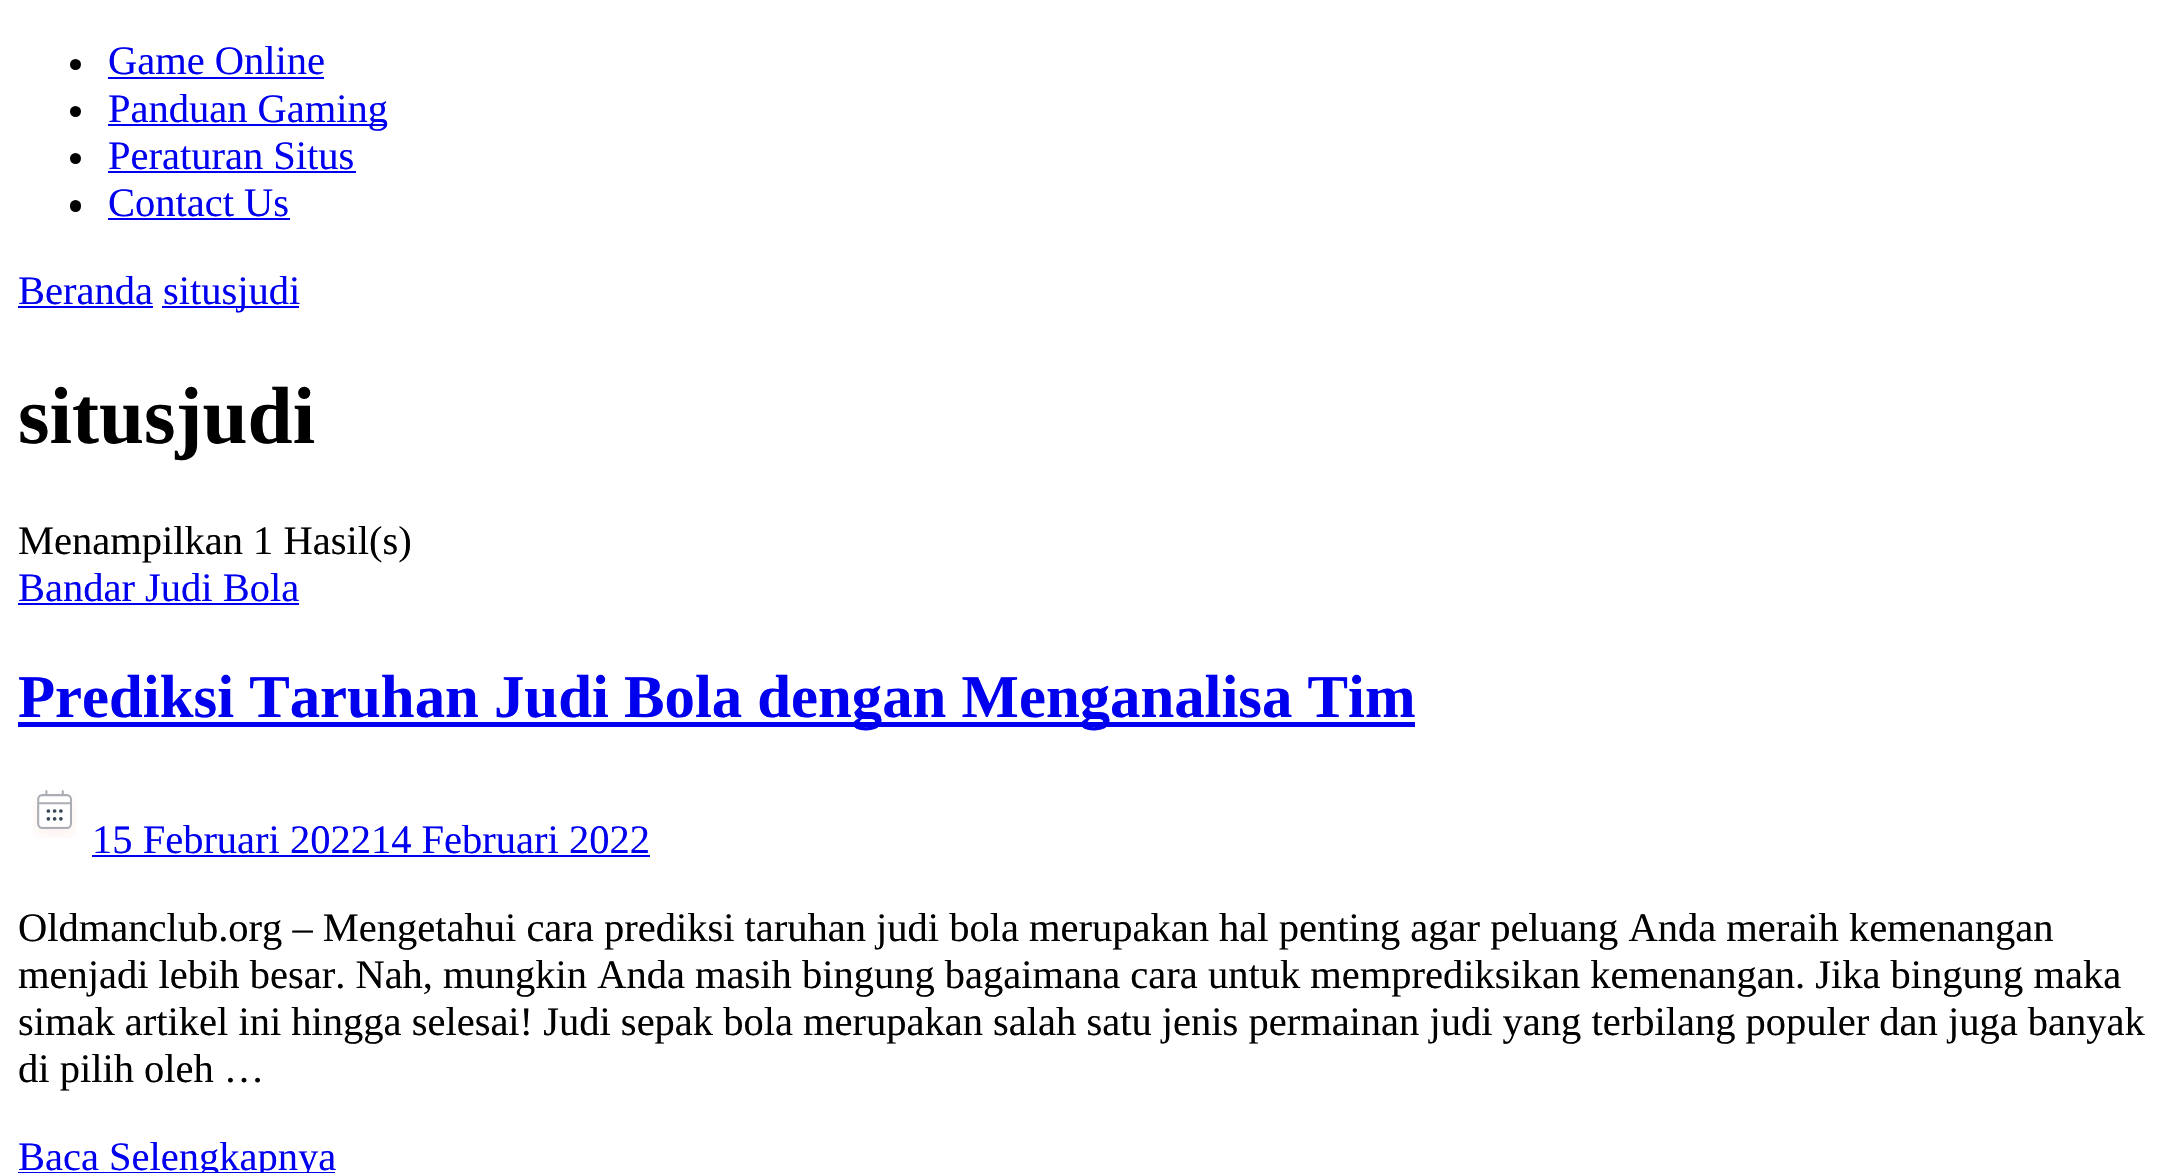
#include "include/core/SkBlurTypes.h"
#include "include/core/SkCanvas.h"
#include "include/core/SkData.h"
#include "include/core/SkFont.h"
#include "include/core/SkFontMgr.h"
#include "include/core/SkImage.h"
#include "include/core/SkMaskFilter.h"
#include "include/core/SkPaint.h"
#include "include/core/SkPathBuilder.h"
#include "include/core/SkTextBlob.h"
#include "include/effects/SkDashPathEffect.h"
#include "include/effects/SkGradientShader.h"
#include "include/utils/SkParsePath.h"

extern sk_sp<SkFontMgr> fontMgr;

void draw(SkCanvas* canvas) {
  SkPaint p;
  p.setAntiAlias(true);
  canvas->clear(SK_ColorWHITE);
  p.setColor(SK_ColorBLACK);
  canvas->drawCircle(75.5f, 64.5f, 5.5f, p);
  p.setColor(SkColorSetRGB(0, 0, 238));
  canvas->drawRect(SkRect::MakeLTRB(108, 77, 324, 79), p);
  p.setColor(SK_ColorBLACK);
  canvas->drawCircle(75.5f, 111.5f, 5.5f, p);
  p.setColor(SkColorSetRGB(0, 0, 238));
  canvas->drawRect(SkRect::MakeLTRB(108, 124, 387, 126), p);
  p.setColor(SK_ColorBLACK);
  canvas->drawCircle(75.5f, 158.5f, 5.5f, p);
  p.setColor(SkColorSetRGB(0, 0, 238));
  canvas->drawRect(SkRect::MakeLTRB(108, 171, 356, 173), p);
  p.setColor(SK_ColorBLACK);
  canvas->drawRoundRect(SkRect::MakeLTRB(70, 200, 81, 212), 5.5f, 5.5f, p);
  p.setColor(SkColorSetRGB(0, 0, 238));
  canvas->drawRect(SkRect::MakeLTRB(108, 218, 290, 220), p);
  canvas->drawRect(SkRect::MakeLTRB(18, 306, 153, 308), p);
  canvas->drawRect(SkRect::MakeLTRB(162, 306, 299, 308), p);
  canvas->drawRect(SkRect::MakeLTRB(18, 603, 299, 605), p);
  canvas->drawRect(SkRect::MakeLTRB(18, 722, 1415, 727), p);
  canvas->drawImageRect(SkImages::DeferredFromEncodedData(SkData::MakeFromFileName("images/1.png")), SkRect::MakeLTRB(33, 790, 77, 838), SkSamplingOptions());
  canvas->drawRect(SkRect::MakeLTRB(92, 855, 650, 857), p);
  canvas->drawRect(SkRect::MakeLTRB(18, 1172, 335, 1173), p);
  SkFont font1(fontMgr->matchFamilyStyle("Liberation Serif", SkFontStyle::Normal()), 40.5f);
  font1.setSubpixel(true);
  canvas->drawString("Game Online", 108, 74, font1, p);
  canvas->drawString("Panduan Gaming", 108, 122, font1, p);
  canvas->drawString("Peraturan Situs", 108, 169, font1, p);
  canvas->drawString("Contact Us", 108, 216, font1, p);
  canvas->drawString("Beranda", 18, 304, font1, p);
  canvas->drawString("situsjudi", 163, 304, font1, p);
  SkFont font2(fontMgr->matchFamilyStyle("Liberation Serif", SkFontStyle::Bold()), 81);
  font2.setSubpixel(true);
  p.setColor(SK_ColorBLACK);
  canvas->drawString("situsjudi", 18, 443, font2, p);
  canvas->drawString("Menampilkan 1 Hasil(s)", 18, 554, font1, p);
  p.setColor(SkColorSetRGB(0, 0, 238));
  canvas->drawString("Bandar Judi Bola", 18, 601, font1, p);
  SkFont font3(fontMgr->matchFamilyStyle("Liberation Serif", SkFontStyle::Bold()), 60.75f);
  font3.setSubpixel(true);
  canvas->drawString("Prediksi Taruhan Judi Bola dengan Menganalisa Tim", 18, 717, font3, p);
  canvas->drawString("15 Februari 202214 Februari 2022", 92, 853, font1, p);
  p.setColor(SK_ColorBLACK);
  canvas->drawString("Oldmanclub.org – Mengetahui cara prediksi taruhan judi bola merupakan hal penting agar peluang Anda meraih kemenangan", 18, 941, font1, p);
  canvas->drawString("menjadi lebih besar. Nah, mungkin Anda masih bingung bagaimana cara untuk memprediksikan kemenangan. Jika bingung maka", 18, 988, font1, p);
  canvas->drawString("simak artikel ini hingga selesai! Judi sepak bola merupakan salah satu jenis permainan judi yang terbilang populer dan juga banyak", 18, 1035, font1, p);
  canvas->drawString("di pilih oleh …", 18, 1082, font1, p);
  p.setColor(SkColorSetRGB(0, 0, 238));
  canvas->drawString("Baca Selengkapnya", 18, 1170, font1, p);
}
